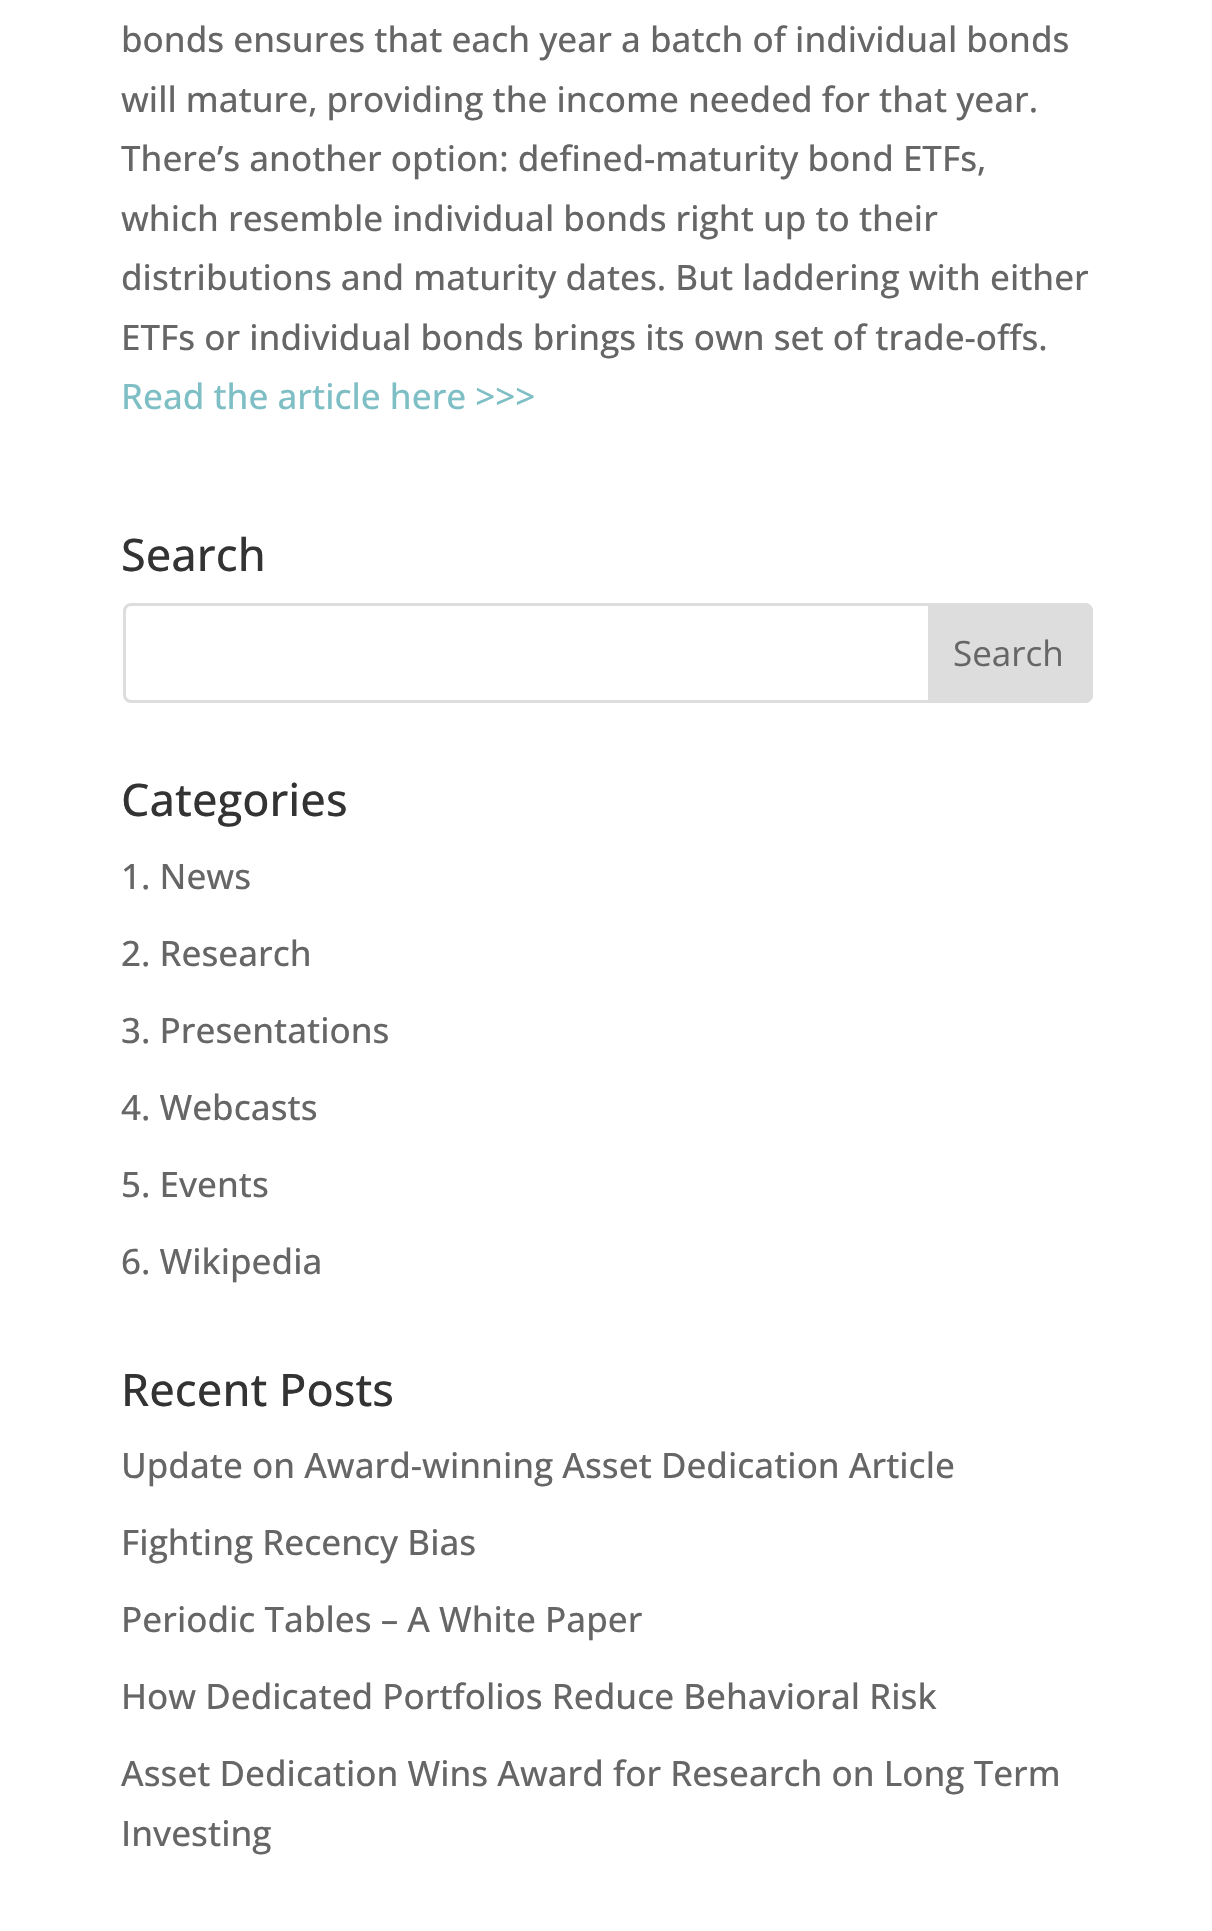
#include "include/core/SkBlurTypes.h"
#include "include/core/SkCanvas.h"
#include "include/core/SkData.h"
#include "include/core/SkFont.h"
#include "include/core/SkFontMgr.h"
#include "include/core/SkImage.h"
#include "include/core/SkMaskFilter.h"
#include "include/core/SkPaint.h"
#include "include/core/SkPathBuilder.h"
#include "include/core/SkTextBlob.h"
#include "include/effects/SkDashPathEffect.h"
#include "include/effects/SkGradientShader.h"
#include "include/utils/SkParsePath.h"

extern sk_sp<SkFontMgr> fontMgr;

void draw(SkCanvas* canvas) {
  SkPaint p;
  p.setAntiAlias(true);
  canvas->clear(SK_ColorWHITE);
  p.setStyle(SkPaint::kStroke_Style);
  p.setStrokeWidth(3);
  p.setColor(SkColorSetRGB(221, 221, 221));
  canvas->drawRoundRect(SkRect::MakeLTRB(124.5f, 604.5f, 1091.5f, 701.5f), 6.5f, 6.5f, p);
  p.setStyle(SkPaint::kFill_Style);
  canvas->drawPath(SkPathBuilder().moveTo(929.5f, 604.5f).lineTo(1085, 604.5f).cubicTo(1088.5f, 604.5f, 1091.5f, 607.5f, 1091.5f, 611).lineTo(1091.5f, 695).cubicTo(1091.5f, 698.5f, 1088.5f, 701.5f, 1085, 701.5f).lineTo(929.5f, 701.5f).close().detach(), p);
  p.setStyle(SkPaint::kStroke_Style);
  canvas->drawPath(SkPathBuilder().moveTo(929.5f, 604.5f).lineTo(1085, 604.5f).cubicTo(1088.5f, 604.5f, 1091.5f, 607.5f, 1091.5f, 611).lineTo(1091.5f, 695).cubicTo(1091.5f, 698.5f, 1088.5f, 701.5f, 1085, 701.5f).lineTo(929.5f, 701.5f).close().detach(), p);
  SkFont font1(fontMgr->matchFamilyStyle("Open Sans", SkFontStyle(500, SkFontStyle::kNormal_Width, SkFontStyle::kUpright_Slant)), 35);
  font1.setSubpixel(true);
  p.setStyle(SkPaint::kFill_Style);
  p.setColor(SkColorSetRGB(102, 102, 102));
  canvas->drawString("bonds ensures that each year a batch of individual bonds", 121, 52, font1, p);
  canvas->drawString("will mature, providing the income needed for that year.", 121, 112, font1, p);
  canvas->drawString("There’s another option: defined-maturity bond ETFs,", 121, 171, font1, p);
  canvas->drawString("which resemble individual bonds right up to their", 121, 231, font1, p);
  canvas->drawString("distributions and maturity dates. But laddering with either", 121, 290, font1, p);
  canvas->drawString("ETFs or individual bonds brings its own set of trade-offs.", 121, 350, font1, p);
  p.setColor(SkColorSetRGB(126, 190, 197));
  canvas->drawString("Read the article here >>>", 121, 409, font1, p);
  SkFont font2(fontMgr->matchFamilyStyle("Open Sans", SkFontStyle(500, SkFontStyle::kNormal_Width, SkFontStyle::kUpright_Slant)), 45);
  font2.setSubpixel(true);
  p.setColor(SkColorSetRGB(51, 51, 51));
  canvas->drawString("Search", 121, 571, font2, p);
  SkFont font3(fontMgr->matchFamilyStyle("Open Sans", SkFontStyle::Normal()), 35);
  font3.setSubpixel(true);
  p.setColor(SkColorSetRGB(102, 102, 102));
  canvas->drawString("Search", 953, 666, font3, p);
  p.setColor(SkColorSetRGB(51, 51, 51));
  canvas->drawString("Categories", 121, 816, font2, p);
  p.setColor(SkColorSetRGB(102, 102, 102));
  canvas->drawString("1. News", 121, 889, font1, p);
  canvas->drawString("2. Research", 121, 966, font1, p);
  canvas->drawString("3. Presentations", 121, 1043, font1, p);
  canvas->drawString("4. Webcasts", 121, 1120, font1, p);
  canvas->drawString("5. Events", 121, 1197, font1, p);
  canvas->drawString("6. Wikipedia", 121, 1274, font1, p);
  p.setColor(SkColorSetRGB(51, 51, 51));
  canvas->drawString("Recent Posts", 121, 1406, font2, p);
  p.setColor(SkColorSetRGB(102, 102, 102));
  canvas->drawString("Update on Award-winning Asset Dedication Article", 121, 1478, font1, p);
  canvas->drawString("Fighting Recency Bias", 121, 1555, font1, p);
  canvas->drawString("Periodic Tables – A White Paper", 121, 1632, font1, p);
  canvas->drawString("How Dedicated Portfolios Reduce Behavioral Risk", 121, 1709, font1, p);
  canvas->drawString("Asset Dedication Wins Award for Research on Long Term", 121, 1786, font1, p);
  canvas->drawString("Investing", 121, 1846, font1, p);
}
